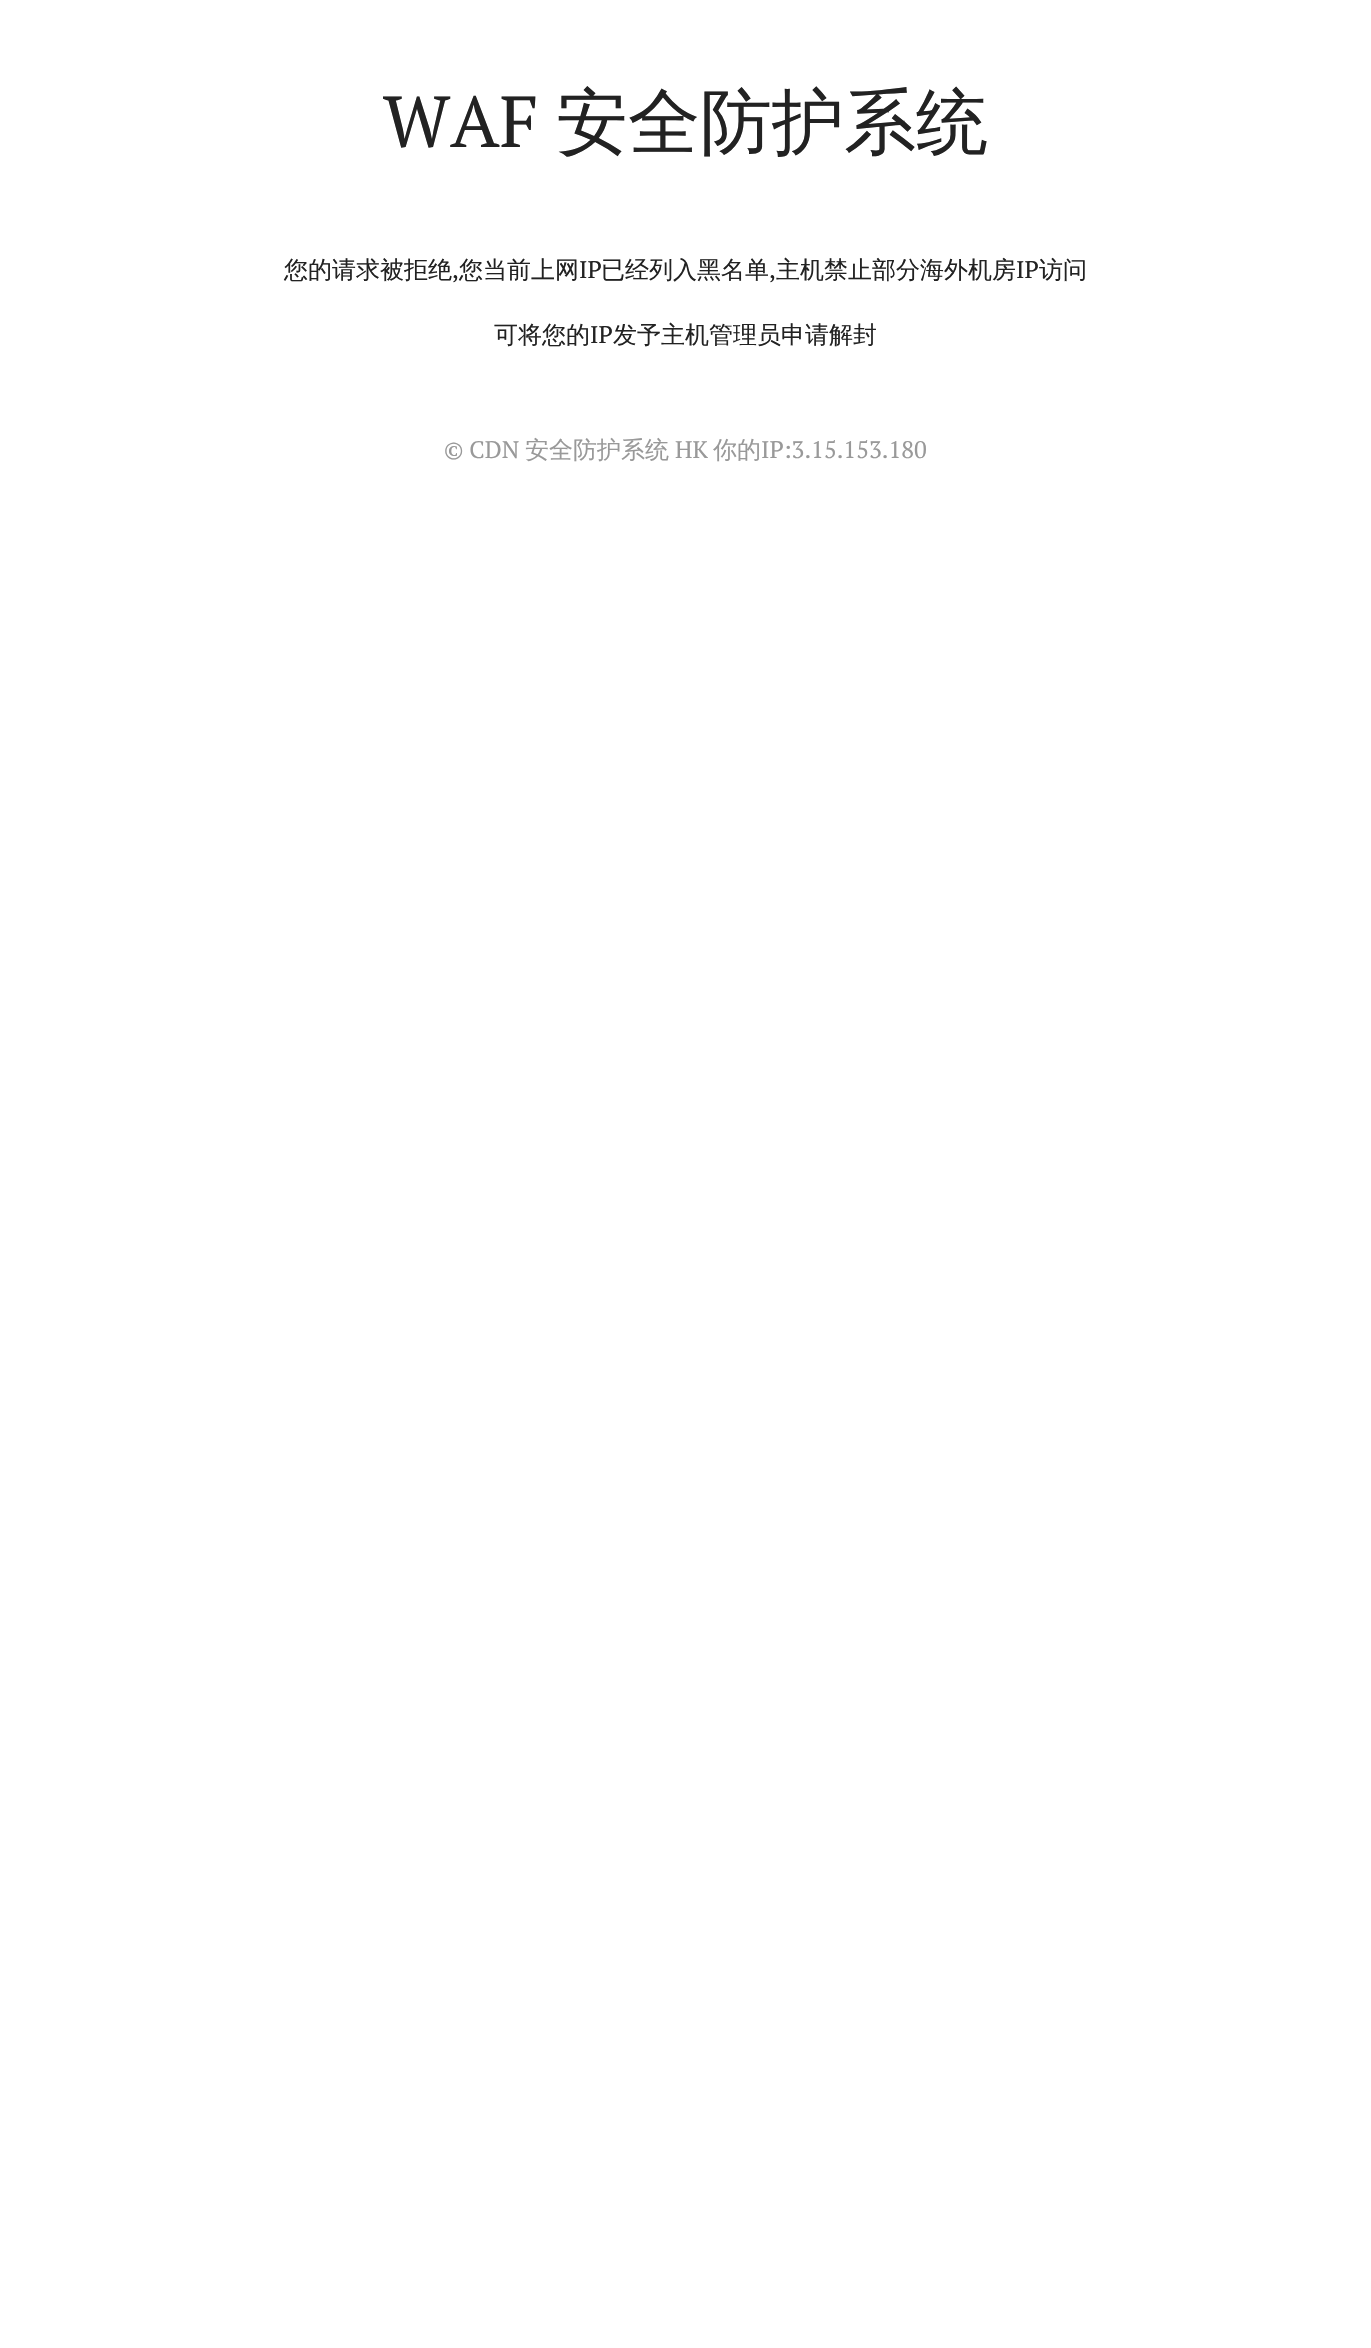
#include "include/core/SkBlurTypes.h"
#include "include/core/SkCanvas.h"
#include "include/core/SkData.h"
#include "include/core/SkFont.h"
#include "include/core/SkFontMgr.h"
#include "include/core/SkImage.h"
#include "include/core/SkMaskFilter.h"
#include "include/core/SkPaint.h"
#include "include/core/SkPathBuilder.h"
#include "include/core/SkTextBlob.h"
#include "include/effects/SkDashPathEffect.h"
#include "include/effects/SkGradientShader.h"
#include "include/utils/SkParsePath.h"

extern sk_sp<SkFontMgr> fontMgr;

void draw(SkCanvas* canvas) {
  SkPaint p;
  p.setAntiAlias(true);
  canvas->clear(SK_ColorWHITE);
  SkFont font1(fontMgr->matchFamilyStyle("PT Serif", SkFontStyle::Normal()), 72);
  font1.setSubpixel(true);
  p.setColor(SkColorSetRGB(34, 34, 34));
  canvas->drawString("WAF", 383, 147, font1, p);
  SkFont font2(fontMgr->matchFamilyStyle("WenQuanYi Zen Hei", SkFontStyle(500, SkFontStyle::kNormal_Width, SkFontStyle::kUpright_Slant)), 72);
  font2.setSubpixel(true);
  canvas->drawString("安全防护系统", 556, 147, font2, p);
  SkFont font3(fontMgr->matchFamilyStyle("WenQuanYi Zen Hei", SkFontStyle(500, SkFontStyle::kNormal_Width, SkFontStyle::kUpright_Slant)), 24);
  font3.setSubpixel(true);
  canvas->drawString("您的请求被拒绝", 284, 278, font3, p);
  canvas->drawString("您当前上网", 459, 278, font3, p);
  SkFont font4(fontMgr->matchFamilyStyle("PT Serif", SkFontStyle::Normal()), 24);
  font4.setSubpixel(true);
  canvas->drawString("IP", 579, 278, font4, p);
  canvas->drawString("已经列入黑名单", 601, 278, font3, p);
  canvas->drawString("主机禁止部分海外机房", 776, 278, font3, p);
  canvas->drawString("IP", 1016, 278, font4, p);
  canvas->drawString("访问", 1039, 278, font3, p);
  canvas->drawString(",", 452, 278, font4, p);
  canvas->drawString(",", 769, 278, font4, p);
  canvas->drawString("可将您的", 494, 343, font3, p);
  canvas->drawString("IP", 590, 343, font4, p);
  canvas->drawString("发予主机管理员申请解封", 613, 343, font3, p);
  p.setColor(SkColorSetRGB(153, 153, 153));
  canvas->drawString("© CDN", 444, 458, font4, p);
  canvas->drawString("安全防护系统", 525, 458, font3, p);
  canvas->drawString("HK", 675, 458, font4, p);
  canvas->drawString("你的", 713, 458, font3, p);
  canvas->drawString("IP:3.15.153.180", 761, 458, font4, p);
}
